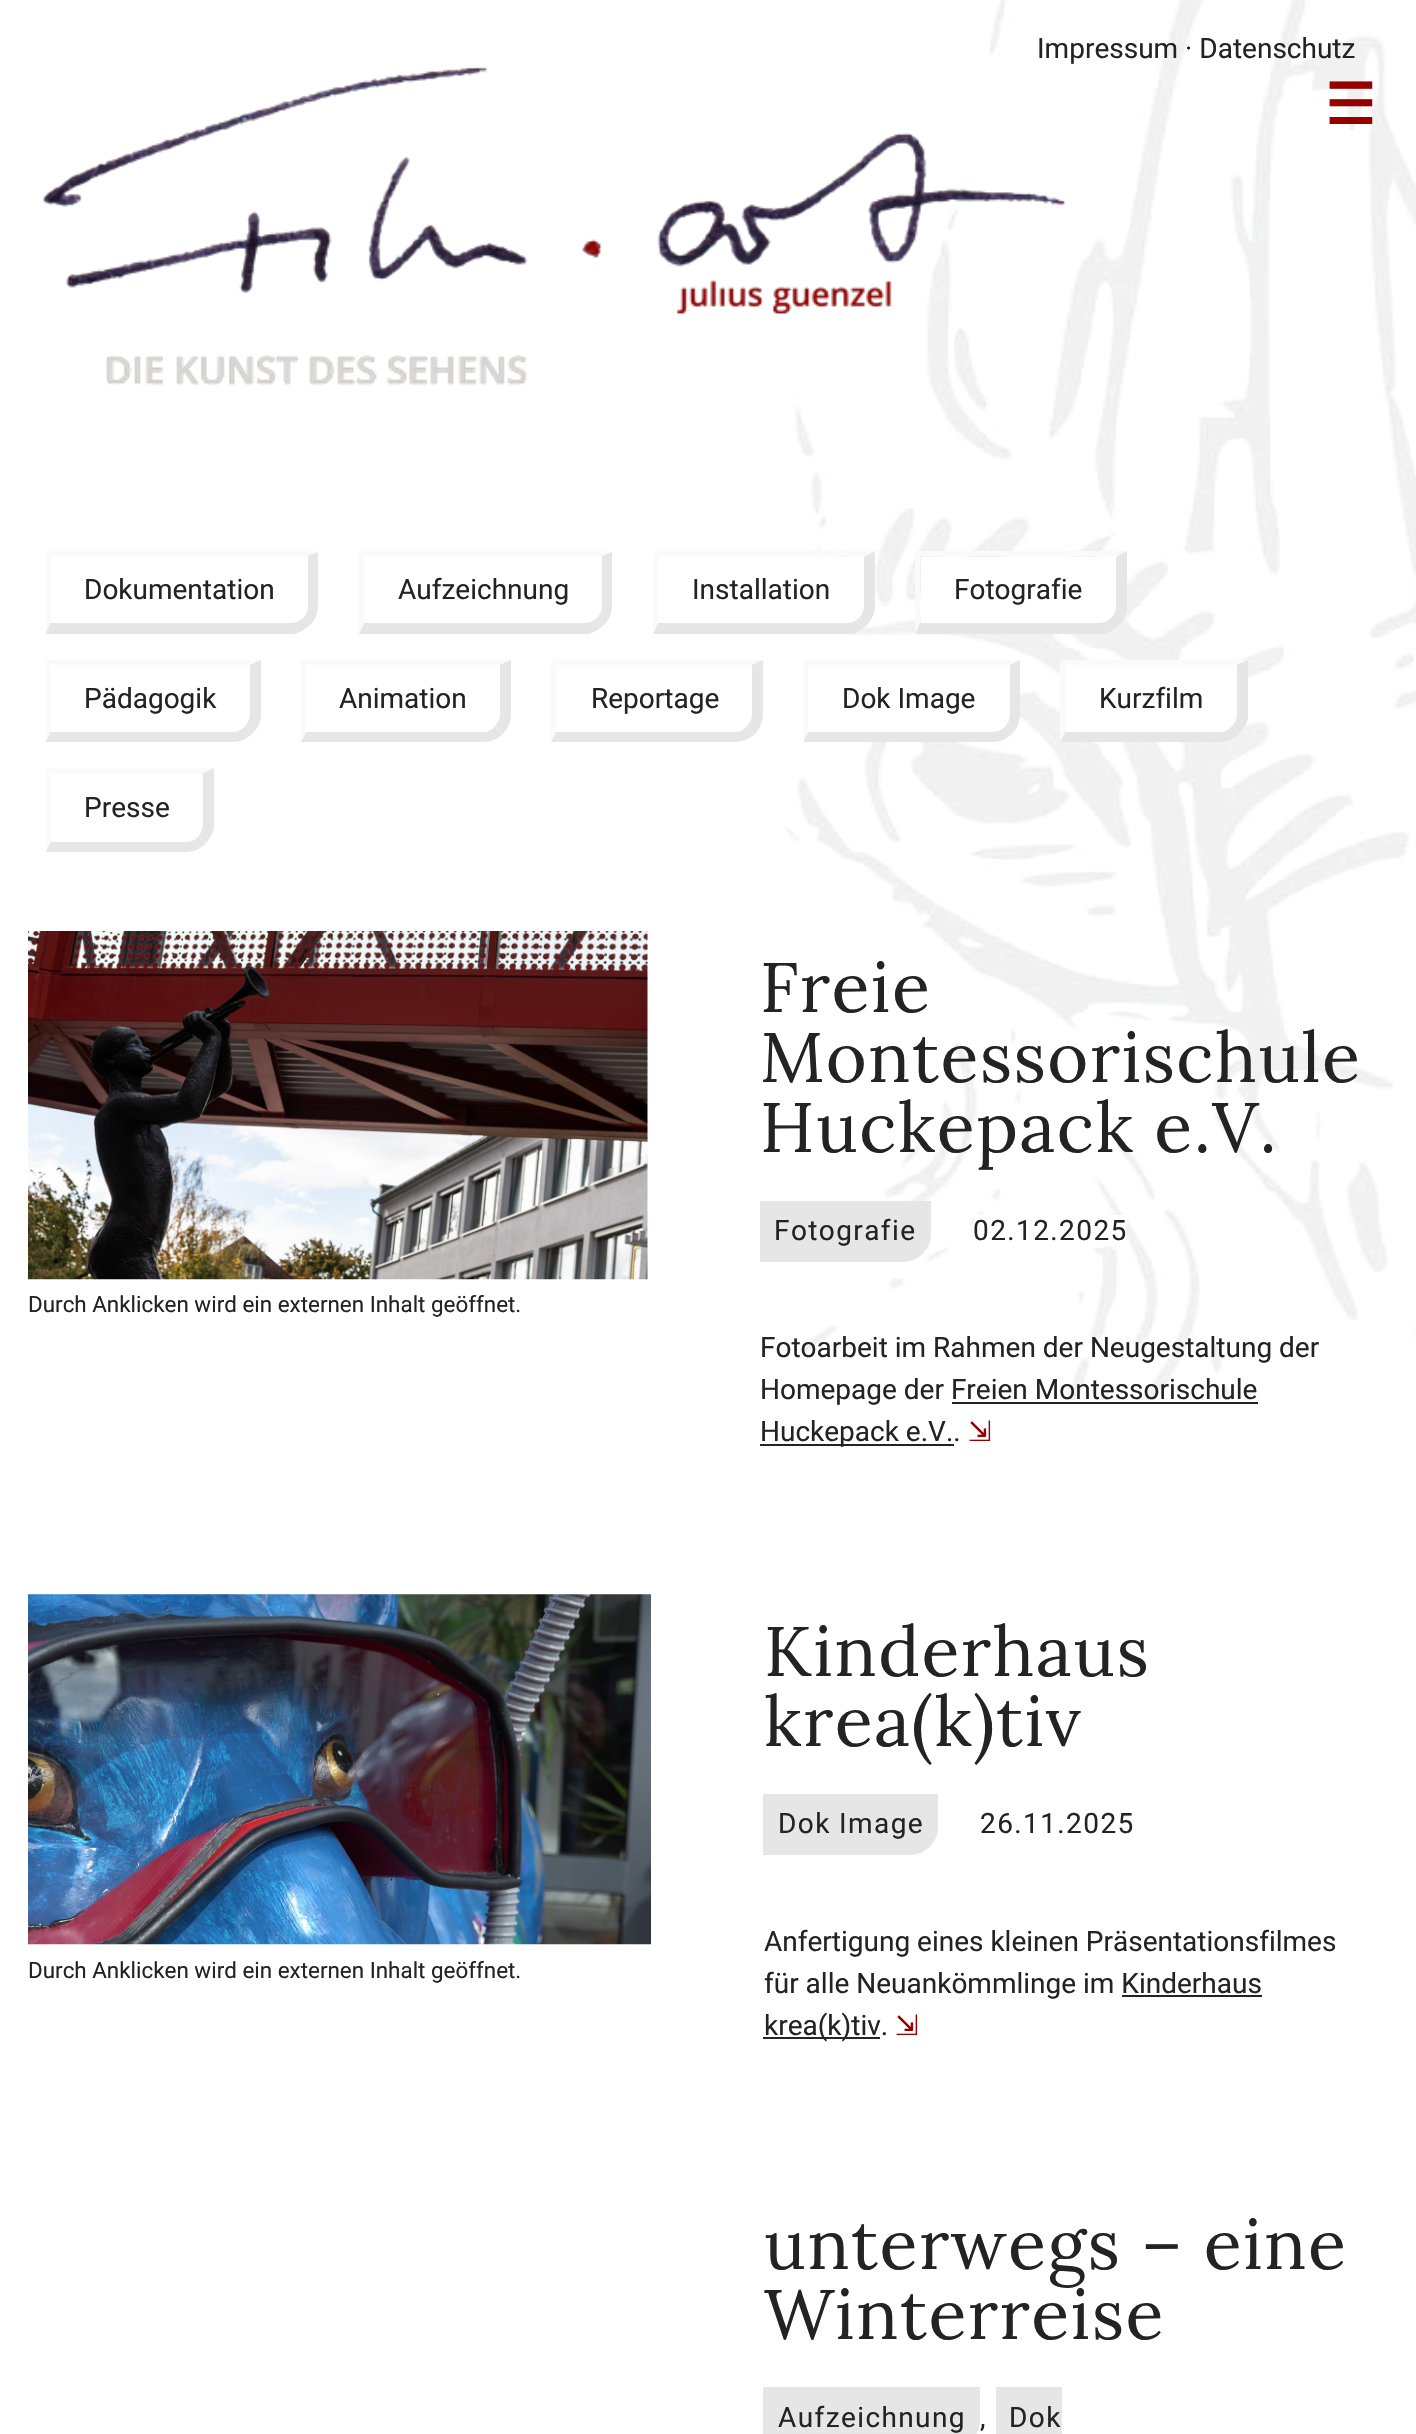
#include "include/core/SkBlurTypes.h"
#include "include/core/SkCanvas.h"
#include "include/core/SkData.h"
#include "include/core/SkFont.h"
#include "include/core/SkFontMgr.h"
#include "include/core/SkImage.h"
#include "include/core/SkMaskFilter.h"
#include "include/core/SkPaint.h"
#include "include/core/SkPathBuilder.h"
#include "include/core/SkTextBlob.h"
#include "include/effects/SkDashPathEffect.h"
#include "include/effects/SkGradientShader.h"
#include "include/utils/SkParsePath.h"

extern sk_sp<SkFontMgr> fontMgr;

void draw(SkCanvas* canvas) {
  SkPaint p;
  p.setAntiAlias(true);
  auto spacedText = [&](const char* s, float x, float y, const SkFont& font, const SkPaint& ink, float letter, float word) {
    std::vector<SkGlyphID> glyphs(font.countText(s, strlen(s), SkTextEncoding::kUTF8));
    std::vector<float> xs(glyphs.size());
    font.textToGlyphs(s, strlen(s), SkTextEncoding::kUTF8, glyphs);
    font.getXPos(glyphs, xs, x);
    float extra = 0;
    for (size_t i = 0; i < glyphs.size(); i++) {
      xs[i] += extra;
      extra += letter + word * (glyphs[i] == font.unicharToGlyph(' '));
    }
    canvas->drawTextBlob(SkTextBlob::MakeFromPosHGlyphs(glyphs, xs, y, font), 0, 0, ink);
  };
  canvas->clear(SK_ColorWHITE);
  canvas->drawImageRect(SkImages::DeferredFromEncodedData(SkData::MakeFromFileName("images/1.png")), SkRect::MakeLTRB(784, 0, 1416, 1400), SkSamplingOptions());
  canvas->drawImageRect(SkImages::DeferredFromEncodedData(SkData::MakeFromFileName("images/2.png")), SkRect::MakeLTRB(43, 66, 1066, 386), SkSamplingOptions());
  p.setColor(SkColorSetRGB(250, 250, 250));
  canvas->drawPath(SkPathBuilder().moveTo(51, 556).lineTo(51, 557).lineTo(46, 551).lineTo(318, 551).lineTo(308, 556).close().detach(), p);
  p.setColor(SkColorSetRGB(230, 230, 230));
  canvas->drawPath(SkPathBuilder().moveTo(318, 552).lineTo(318, 606).cubicTo(318, 613, 315, 620, 310, 625).lineTo(303, 618).cubicTo(306, 615, 308, 610, 308, 606).lineTo(308, 556).close().detach(), p);
  canvas->drawPath(SkPathBuilder().moveTo(46, 634).lineTo(46, 632).lineTo(51, 622).lineTo(51, 623).lineTo(290, 623).cubicTo(295, 623, 300, 621, 303, 618).lineTo(310, 625).cubicTo(306, 629, 301, 632, 295, 634).close().detach(), p);
  p.setColor(SkColorSetRGB(250, 250, 250));
  canvas->drawPath(SkPathBuilder().moveTo(46, 632).lineTo(46, 552).lineTo(51, 557).lineTo(51, 622).close().detach(), p);
  canvas->drawPath(SkPathBuilder().moveTo(364, 556).lineTo(359, 551).lineTo(612, 551).lineTo(602, 556).close().detach(), p);
  p.setColor(SkColorSetRGB(230, 230, 230));
  canvas->drawPath(SkPathBuilder().moveTo(612, 552).lineTo(612, 606).cubicTo(612, 613, 609, 620, 604, 625).lineTo(597, 618).cubicTo(600, 615, 602, 610, 602, 606).lineTo(602, 556).close().detach(), p);
  canvas->drawPath(SkPathBuilder().moveTo(359, 634).lineTo(364, 623).lineTo(584, 623).cubicTo(589, 623, 594, 621, 597, 618).lineTo(604, 625).cubicTo(600, 629, 595, 632, 589, 634).close().detach(), p);
  p.setColor(SkColorSetRGB(250, 250, 250));
  canvas->drawPath(SkPathBuilder().moveTo(359, 633).lineTo(359, 552).lineTo(364, 556).lineTo(364, 623).close().detach(), p);
  p.setColor(SK_ColorWHITE);
  canvas->drawPath(SkPathBuilder().moveTo(658, 557).lineTo(865, 557).lineTo(865, 605).cubicTo(865, 615, 857, 623, 847, 623).lineTo(658, 623).close().detach(), p);
  p.setColor(SkColorSetRGB(250, 250, 250));
  canvas->drawPath(SkPathBuilder().moveTo(658, 556).lineTo(653, 551).lineTo(875, 551).lineTo(864, 557).lineTo(864, 556).close().detach(), p);
  p.setColor(SkColorSetRGB(230, 230, 230));
  canvas->drawPath(SkPathBuilder().moveTo(875, 551).lineTo(864, 557).lineTo(864, 606).cubicTo(864, 610, 862, 615, 859, 618).lineTo(867, 625).cubicTo(872, 620, 875, 613, 875, 606).close().detach(), p);
  canvas->drawPath(SkPathBuilder().moveTo(653, 634).lineTo(658, 623).lineTo(847, 623).cubicTo(852, 623, 856, 621, 859, 618).lineTo(867, 625).cubicTo(863, 629, 858, 632, 852, 634).close().detach(), p);
  p.setColor(SkColorSetRGB(250, 250, 250));
  canvas->drawPath(SkPathBuilder().moveTo(653, 633).lineTo(653, 552).lineTo(658, 556).lineTo(658, 623).close().detach(), p);
  p.setColor(SK_ColorWHITE);
  canvas->drawPath(SkPathBuilder().moveTo(921, 557).lineTo(1117, 557).lineTo(1117, 605).cubicTo(1117, 615, 1109, 623, 1099, 623).lineTo(921, 623).close().detach(), p);
  p.setColor(SkColorSetRGB(250, 250, 250));
  canvas->drawPath(SkPathBuilder().moveTo(920, 556).lineTo(1116, 556).lineTo(1116, 557).lineTo(1127, 551).lineTo(915, 551).close().detach(), p);
  p.setColor(SkColorSetRGB(230, 230, 230));
  canvas->drawPath(SkPathBuilder().moveTo(1127, 551).lineTo(1116, 557).lineTo(1116, 606).cubicTo(1116, 610, 1114, 615, 1111, 618).lineTo(1119, 625).cubicTo(1124, 620, 1127, 613, 1127, 606).close().detach(), p);
  canvas->drawPath(SkPathBuilder().moveTo(1119, 625).cubicTo(1115, 629, 1110, 632, 1104, 634).lineTo(915, 634).lineTo(920, 623).lineTo(1099, 623).cubicTo(1104, 623, 1108, 621, 1111, 618).close().detach(), p);
  p.setColor(SkColorSetRGB(250, 250, 250));
  canvas->drawPath(SkPathBuilder().moveTo(915, 634).lineTo(920, 623).lineTo(920, 556).lineTo(915, 551).close().detach(), p);
  canvas->drawPath(SkPathBuilder().moveTo(46, 660).lineTo(51, 665).lineTo(250, 665).lineTo(260, 660).close().detach(), p);
  p.setColor(SkColorSetRGB(230, 230, 230));
  canvas->drawPath(SkPathBuilder().moveTo(261, 718).cubicTo(260, 724, 257, 729, 252, 734).lineTo(245, 726).cubicTo(248, 723, 250, 719, 250, 714).lineTo(250, 665).lineTo(261, 660).close().detach(), p);
  canvas->drawPath(SkPathBuilder().moveTo(46, 742).lineTo(233, 742).cubicTo(240, 742, 247, 739, 252, 734).lineTo(245, 726).cubicTo(242, 730, 238, 732, 233, 732).lineTo(51, 732).lineTo(51, 731).lineTo(46, 741).close().detach(), p);
  p.setColor(SkColorSetRGB(250, 250, 250));
  canvas->drawPath(SkPathBuilder().moveTo(46, 660).lineTo(46, 741).lineTo(51, 731).lineTo(51, 665).close().detach(), p);
  canvas->drawPath(SkPathBuilder().moveTo(510, 660).lineTo(301, 660).lineTo(306, 665).lineTo(500, 665).close().detach(), p);
  p.setColor(SkColorSetRGB(230, 230, 230));
  canvas->drawPath(SkPathBuilder().moveTo(511, 714).lineTo(511, 660).lineTo(500, 665).lineTo(500, 714).cubicTo(500, 719, 498, 723, 495, 726).lineTo(503, 734).cubicTo(508, 728, 511, 722, 511, 714).close().detach(), p);
  canvas->drawPath(SkPathBuilder().moveTo(483, 742).cubicTo(490, 742, 498, 739, 503, 734).lineTo(495, 726).cubicTo(492, 730, 488, 732, 483, 732).lineTo(306, 732).lineTo(301, 742).close().detach(), p);
  p.setColor(SkColorSetRGB(250, 250, 250));
  canvas->drawPath(SkPathBuilder().moveTo(306, 665).lineTo(301, 660).lineTo(301, 742).lineTo(306, 732).close().detach(), p);
  canvas->drawPath(SkPathBuilder().moveTo(762, 660).lineTo(552, 660).lineTo(556, 665).lineTo(752, 665).close().detach(), p);
  p.setColor(SkColorSetRGB(230, 230, 230));
  canvas->drawPath(SkPathBuilder().moveTo(763, 714).lineTo(763, 660).lineTo(752, 665).lineTo(752, 714).cubicTo(752, 719, 750, 723, 747, 726).lineTo(755, 734).cubicTo(760, 728, 763, 722, 763, 714).close().detach(), p);
  canvas->drawPath(SkPathBuilder().moveTo(551, 742).lineTo(735, 742).cubicTo(742, 742, 750, 739, 755, 734).lineTo(747, 726).cubicTo(744, 730, 740, 732, 735, 732).lineTo(556, 732).close().detach(), p);
  p.setColor(SkColorSetRGB(250, 250, 250));
  canvas->drawPath(SkPathBuilder().moveTo(556, 665).lineTo(551, 660).lineTo(551, 742).lineTo(556, 732).close().detach(), p);
  p.setColor(SK_ColorWHITE);
  canvas->drawPath(SkPathBuilder().moveTo(809, 665).lineTo(1010, 665).lineTo(1010, 714).cubicTo(1010, 724, 1002, 732, 992, 732).lineTo(809, 732).close().detach(), p);
  p.setColor(SkColorSetRGB(250, 250, 250));
  canvas->drawPath(SkPathBuilder().moveTo(1020, 660).lineTo(804, 660).lineTo(808, 665).lineTo(1010, 665).close().detach(), p);
  p.setColor(SkColorSetRGB(230, 230, 230));
  canvas->drawPath(SkPathBuilder().moveTo(1020, 660).lineTo(1020, 714).cubicTo(1020, 722, 1017, 729, 1012, 734).lineTo(1005, 727).cubicTo(1008, 723, 1010, 719, 1010, 714).lineTo(1010, 665).close().detach(), p);
  canvas->drawPath(SkPathBuilder().moveTo(803, 742).lineTo(992, 742).cubicTo(1000, 742, 1007, 739, 1012, 734).lineTo(1005, 727).cubicTo(1002, 730, 997, 732, 992, 732).lineTo(808, 732).close().detach(), p);
  p.setColor(SkColorSetRGB(250, 250, 250));
  canvas->drawPath(SkPathBuilder().moveTo(808, 665).lineTo(803, 660).lineTo(803, 742).lineTo(808, 732).close().detach(), p);
  p.setColor(SK_ColorWHITE);
  canvas->drawPath(SkPathBuilder().moveTo(1066, 665).lineTo(1237, 665).lineTo(1237, 714).cubicTo(1237, 724, 1229, 732, 1219, 732).lineTo(1066, 732).close().detach(), p);
  p.setColor(SkColorSetRGB(250, 250, 250));
  canvas->drawPath(SkPathBuilder().moveTo(1066, 665).lineTo(1237, 665).lineTo(1247, 660).lineTo(1061, 660).close().detach(), p);
  p.setColor(SkColorSetRGB(230, 230, 230));
  canvas->drawPath(SkPathBuilder().moveTo(1248, 718).cubicTo(1247, 724, 1244, 729, 1239, 734).lineTo(1232, 726).cubicTo(1235, 723, 1237, 719, 1237, 714).lineTo(1237, 665).lineTo(1248, 660).close().detach(), p);
  canvas->drawPath(SkPathBuilder().moveTo(1060, 742).lineTo(1220, 742).cubicTo(1227, 742, 1234, 739, 1239, 734).lineTo(1232, 726).cubicTo(1229, 730, 1225, 732, 1220, 732).lineTo(1066, 732).lineTo(1066, 731).close().detach(), p);
  p.setColor(SkColorSetRGB(250, 250, 250));
  canvas->drawPath(SkPathBuilder().moveTo(1060, 742).lineTo(1066, 731).lineTo(1066, 665).lineTo(1060, 660).close().detach(), p);
  canvas->drawPath(SkPathBuilder().moveTo(46, 769).lineTo(46, 768).lineTo(214, 768).lineTo(202, 774).lineTo(51, 774).close().detach(), p);
  p.setColor(SkColorSetRGB(230, 230, 230));
  canvas->drawPath(SkPathBuilder().moveTo(214, 768).lineTo(214, 829).cubicTo(212, 835, 209, 840, 205, 844).lineTo(198, 837).cubicTo(201, 833, 203, 829, 203, 824).lineTo(203, 774).lineTo(202, 774).close().detach(), p);
  canvas->drawPath(SkPathBuilder().moveTo(205, 844).cubicTo(200, 849, 193, 852, 186, 852).lineTo(46, 852).lineTo(51, 841).lineTo(51, 842).lineTo(186, 842).cubicTo(191, 842, 195, 840, 198, 837).close().detach(), p);
  p.setColor(SkColorSetRGB(250, 250, 250));
  canvas->drawPath(SkPathBuilder().moveTo(51, 774).lineTo(51, 841).lineTo(46, 851).lineTo(46, 769).close().detach(), p);
  canvas->drawImageRect(SkImages::DeferredFromEncodedData(SkData::MakeFromFileName("images/3.png")), SkRect::MakeLTRB(28, 931, 648, 1280), SkSamplingOptions());
  p.setColor(SkColorSetRGB(230, 230, 230));
  canvas->drawPath(SkPathBuilder().moveTo(767, 1208).lineTo(924, 1208).lineTo(924, 1234).cubicTo(924, 1245.5f, 914.5f, 1255, 903, 1255).lineTo(767, 1255).close().detach(), p);
  p.setStyle(SkPaint::kStroke_Style);
  p.setStrokeWidth(14);
  canvas->drawPath(SkPathBuilder().moveTo(767, 1208).lineTo(924, 1208).lineTo(924, 1234).cubicTo(924, 1245.5f, 914.5f, 1255, 903, 1255).lineTo(767, 1255).close().detach(), p);
  p.setStyle(SkPaint::kFill_Style);
  p.setColor(SK_ColorWHITE);
  canvas->drawPath(SkPathBuilder().moveTo(973, 1215).lineTo(1127, 1215).lineTo(1127, 1220).cubicTo(1127, 1235.5f, 1114.5f, 1248, 1099, 1248).lineTo(973, 1248).close().detach(), p);
  p.setColor(SkColorSetRGB(35, 35, 35));
  canvas->drawRect(SkRect::MakeLTRB(952, 1402, 1258, 1404), p);
  canvas->drawRect(SkRect::MakeLTRB(760, 1444, 954, 1446), p);
  canvas->drawImageRect(SkImages::DeferredFromEncodedData(SkData::MakeFromFileName("images/4.png")), SkRect::MakeLTRB(28, 1594, 651, 1945), SkSamplingOptions());
  p.setColor(SkColorSetRGB(230, 230, 230));
  canvas->drawPath(SkPathBuilder().moveTo(770, 1801).lineTo(931, 1801).lineTo(931, 1827).cubicTo(931, 1838.5f, 921.5f, 1848, 910, 1848).lineTo(770, 1848).close().detach(), p);
  p.setStyle(SkPaint::kStroke_Style);
  canvas->drawPath(SkPathBuilder().moveTo(770, 1801).lineTo(931, 1801).lineTo(931, 1827).cubicTo(931, 1838.5f, 921.5f, 1848, 910, 1848).lineTo(770, 1848).close().detach(), p);
  p.setStyle(SkPaint::kFill_Style);
  p.setColor(SkColorSetRGB(35, 35, 35));
  canvas->drawRect(SkRect::MakeLTRB(1122, 1995, 1262, 1997), p);
  canvas->drawRect(SkRect::MakeLTRB(763, 2037, 880, 2039), p);
  p.setColor(SkColorSetRGB(230, 230, 230));
  canvas->drawPath(SkPathBuilder().moveTo(770, 2394).lineTo(973, 2394).lineTo(973, 2420).cubicTo(973, 2431.5f, 963.5f, 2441, 952, 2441).lineTo(770, 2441).close().detach(), p);
  p.setStyle(SkPaint::kStroke_Style);
  canvas->drawPath(SkPathBuilder().moveTo(770, 2394).lineTo(973, 2394).lineTo(973, 2420).cubicTo(973, 2431.5f, 963.5f, 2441, 952, 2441).lineTo(770, 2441).close().detach(), p);
  p.setStyle(SkPaint::kFill_Style);
  canvas->drawRect(SkRect::MakeLTRB(996, 2387, 1062, 2434), p);
  SkFont font1(fontMgr->matchFamilyStyle("Roboto", SkFontStyle::Normal()), 28);
  font1.setSubpixel(true);
  p.setColor(SkColorSetRGB(35, 35, 35));
  canvas->drawString("Impressum · Datenschutz", 1037, 58, font1, p);
  SkFont font2(fontMgr->matchFamilyStyle("DejaVu Sans", SkFontStyle::Bold()), 56);
  font2.setSubpixel(true);
  p.setColor(SkColorSetRGB(149, 0, 0));
  canvas->drawString("☰", 1325, 124, font2, p);
  p.setColor(SkColorSetRGB(35, 35, 35));
  canvas->drawString("Dokumentation", 84, 599, font1, p);
  canvas->drawString("Aufzeichnung", 398, 599, font1, p);
  canvas->drawString("Installation", 692, 599, font1, p);
  canvas->drawString("Fotografie", 954, 599, font1, p);
  canvas->drawString("Pädagogik", 84, 708, font1, p);
  canvas->drawString("Animation", 339, 708, font1, p);
  canvas->drawString("Reportage", 591, 708, font1, p);
  canvas->drawString("Dok Image", 842, 708, font1, p);
  canvas->drawString("Kurzfilm", 1099, 708, font1, p);
  canvas->drawString("Presse", 84, 817, font1, p);
  SkFont font3(fontMgr->matchFamilyStyle("Roboto", SkFontStyle::Normal()), 22.4f);
  font3.setSubpixel(true);
  canvas->drawString("Durch Anklicken wird ein externen Inhalt geöffnet.", 28, 1312, font3, p);
  SkFont font4(fontMgr->matchFamilyStyle("Lora", SkFontStyle::Normal()), 70);
  font4.setSubpixel(true);
  spacedText("Freie", 760, 1012, font4, p, 1.4f, 0);
  spacedText("Montessorischule", 760, 1082, font4, p, 1.4f, 0);
  spacedText("Huckepack e.V.", 760, 1152, font4, p, 1.4f, 0);
  spacedText("Fotografie", 774, 1240, font1, p, 1.4f, 0);
  spacedText("02.12.2025", 973, 1240, font1, p, 1.4f, 0);
  canvas->drawString("Fotoarbeit im Rahmen der Neugestaltung der", 760, 1357, font1, p);
  canvas->drawString("Homepage der Freien Montessorischule", 760, 1399, font1, p);
  canvas->drawString("Huckepack e.V..", 760, 1441, font1, p);
  SkFont font5(fontMgr->matchFamilyStyle("DejaVu Sans", SkFontStyle::Normal()), 28);
  font5.setSubpixel(true);
  p.setColor(SkColorSetRGB(149, 0, 0));
  canvas->drawString("⇲", 968, 1441, font5, p);
  p.setColor(SkColorSetRGB(35, 35, 35));
  canvas->drawString("Durch Anklicken wird ein externen Inhalt geöffnet.", 28, 1978, font3, p);
  spacedText("Kinderhaus", 764, 1676, font4, p, 1.4f, 0);
  spacedText("krea(k)tiv", 764, 1746, font4, p, 1.4f, 0);
  spacedText("Dok Image", 778, 1833, font1, p, 1.4f, 0);
  spacedText("26.11.2025", 980, 1833, font1, p, 1.4f, 0);
  canvas->drawString("Anfertigung eines kleinen Präsentationsfilmes", 764, 1951, font1, p);
  canvas->drawString("für alle Neuankömmlinge im Kinderhaus", 764, 1993, font1, p);
  canvas->drawString("krea(k)tiv.", 764, 2035, font1, p);
  p.setColor(SkColorSetRGB(149, 0, 0));
  canvas->drawString("⇲", 895, 2035, font5, p);
  p.setColor(SkColorSetRGB(35, 35, 35));
  spacedText("unterwegs – eine", 764, 2269, font4, p, 1.4f, 0);
  spacedText("Winterreise", 764, 2339, font4, p, 1.4f, 0);
  spacedText("Aufzeichnung", 778, 2427, font1, p, 1.4f, 0);
  spacedText(",", 980, 2427, font1, p, 1.4f, 0);
  spacedText("Dok", 1009, 2427, font1, p, 1.4f, 0);
}
